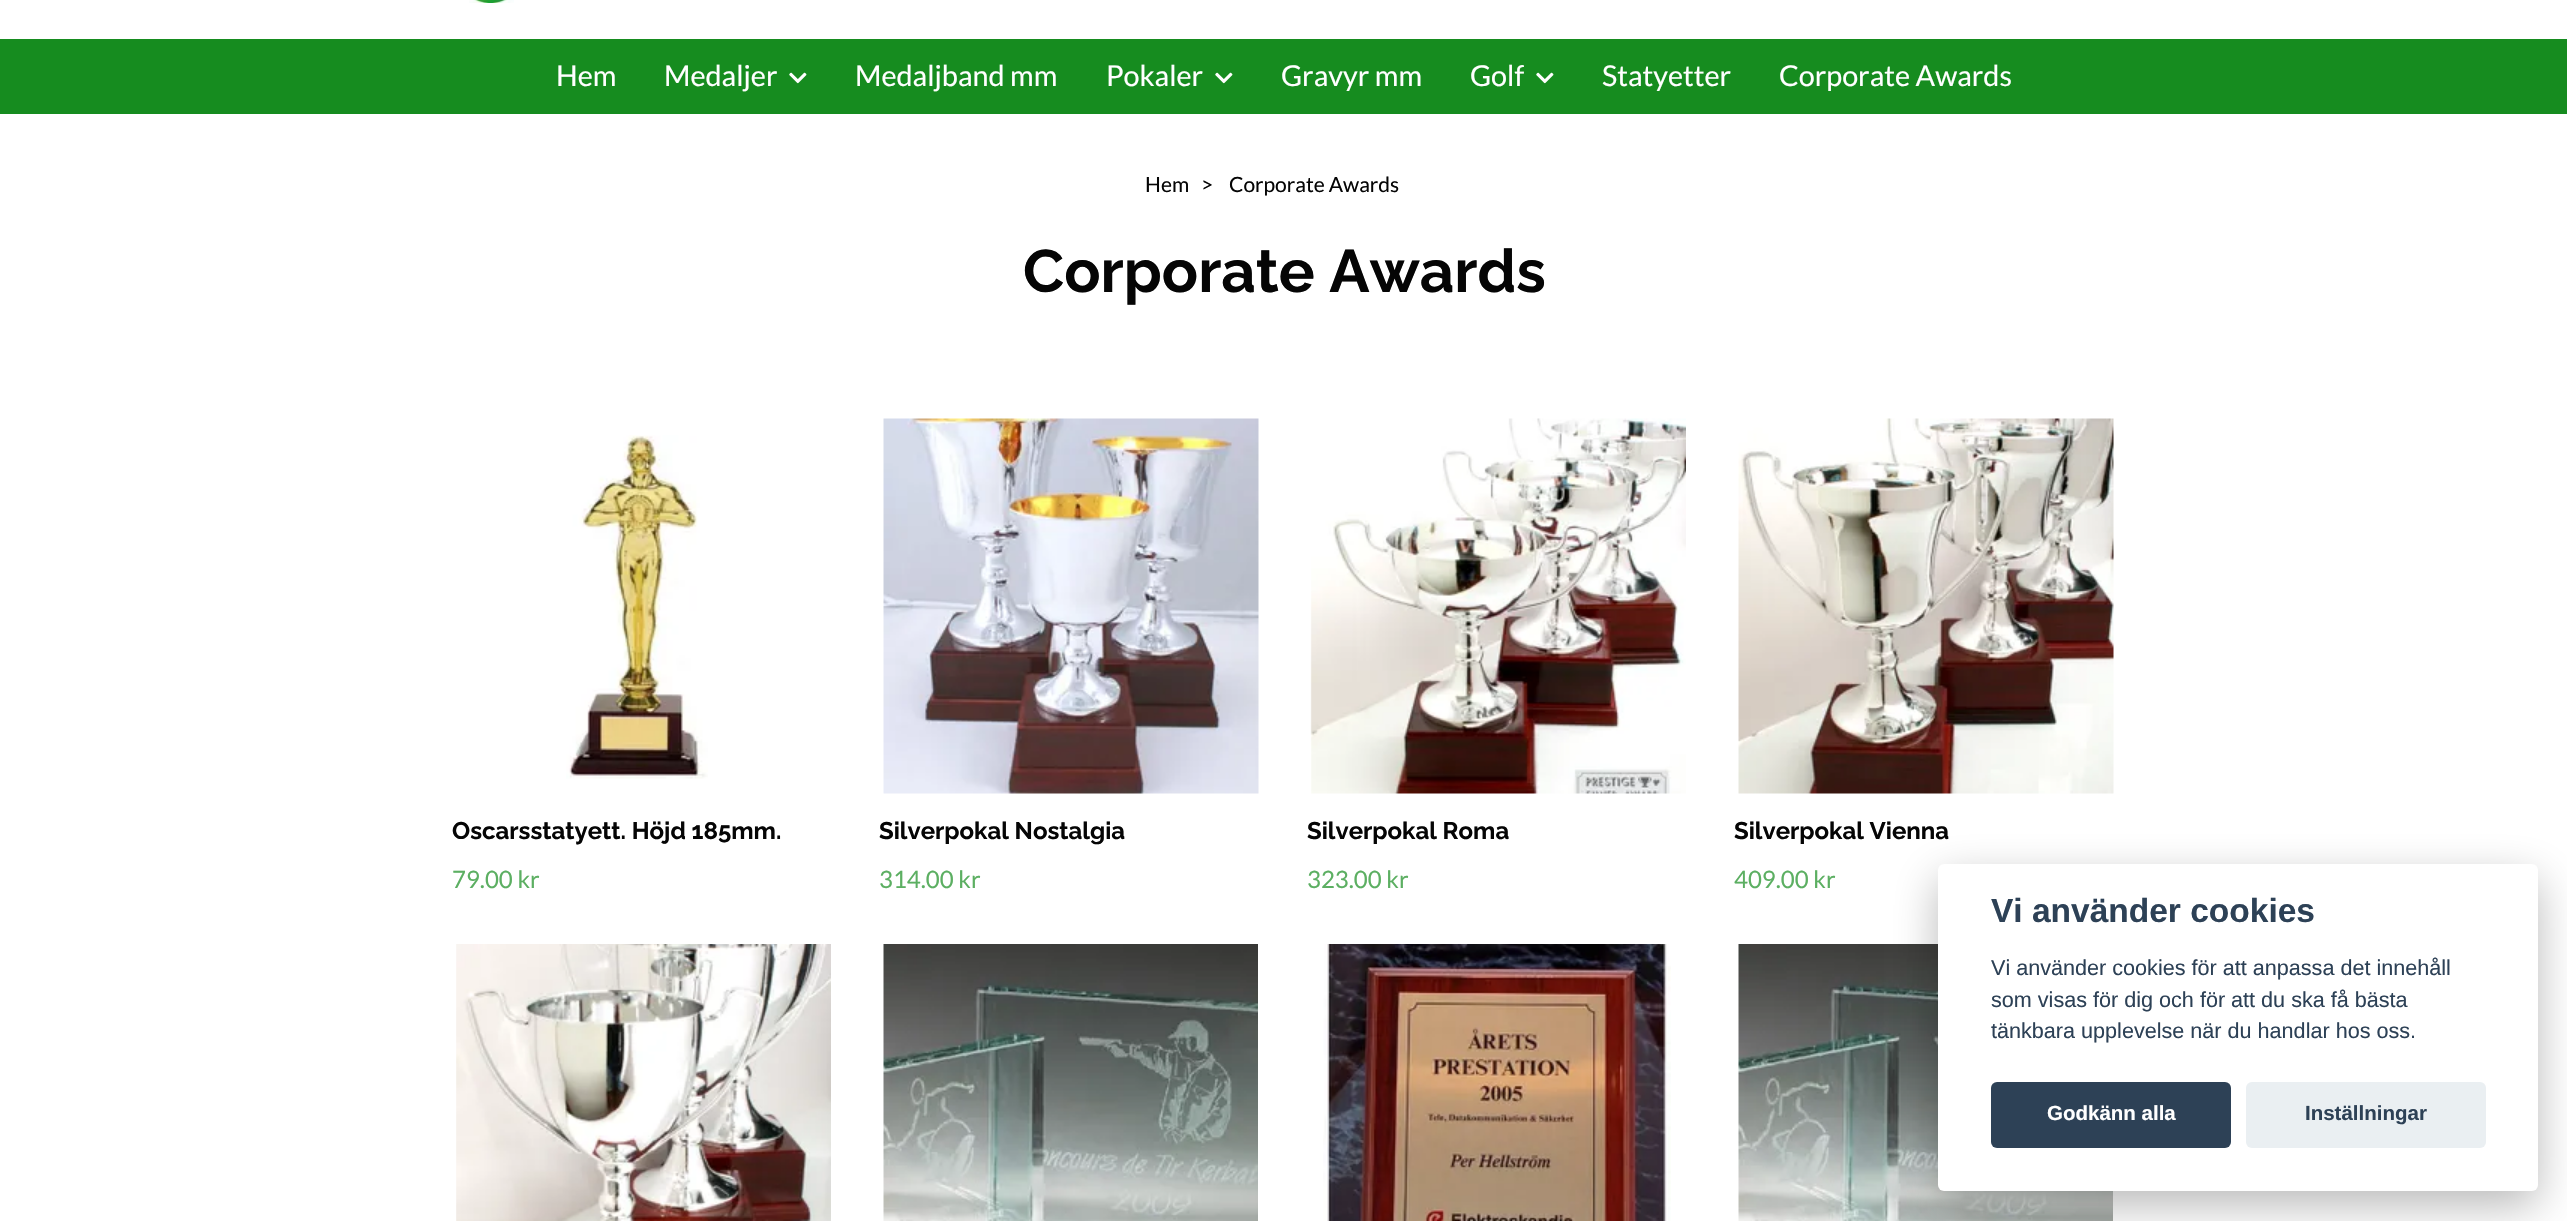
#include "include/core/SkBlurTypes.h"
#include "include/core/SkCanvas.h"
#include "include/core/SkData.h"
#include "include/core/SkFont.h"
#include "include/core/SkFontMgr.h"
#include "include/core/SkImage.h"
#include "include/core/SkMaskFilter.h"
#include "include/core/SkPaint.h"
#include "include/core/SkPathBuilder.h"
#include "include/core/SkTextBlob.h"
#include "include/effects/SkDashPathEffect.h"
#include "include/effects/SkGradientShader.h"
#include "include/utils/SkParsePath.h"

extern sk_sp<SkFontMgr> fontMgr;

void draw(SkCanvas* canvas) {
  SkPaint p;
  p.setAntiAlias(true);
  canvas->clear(SK_ColorWHITE);
  canvas->drawImageRect(SkImages::DeferredFromEncodedData(SkData::MakeFromFileName("images/1.png")), SkRect::MakeLTRB(469, 0, 514, 3), SkSamplingOptions());
  p.setColor(SkColorSetRGB(22, 140, 31));
  canvas->drawRect(SkRect::MakeLTRB(0, 39, 2567, 114), p);
  canvas->drawImageRect(SkImages::DeferredFromEncodedData(SkData::MakeFromFileName("images/2.png")), SkRect::MakeLTRB(789, 72, 807, 84), SkSamplingOptions());
  canvas->drawImageRect(SkImages::DeferredFromEncodedData(SkData::MakeFromFileName("images/2.png")), SkRect::MakeLTRB(1215, 72, 1233, 84), SkSamplingOptions());
  canvas->drawImageRect(SkImages::DeferredFromEncodedData(SkData::MakeFromFileName("images/2.png")), SkRect::MakeLTRB(1536, 72, 1554, 84), SkSamplingOptions());
  canvas->drawImageRect(SkImages::DeferredFromEncodedData(SkData::MakeFromFileName("images/3.png")), SkRect::MakeLTRB(566, 435, 708, 779), SkSamplingOptions());
  canvas->drawImageRect(SkImages::DeferredFromEncodedData(SkData::MakeFromFileName("images/4.png")), SkRect::MakeLTRB(883, 418, 1259, 794), SkSamplingOptions());
  canvas->drawImageRect(SkImages::DeferredFromEncodedData(SkData::MakeFromFileName("images/5.png")), SkRect::MakeLTRB(1310, 418, 1686, 794), SkSamplingOptions());
  canvas->drawImageRect(SkImages::DeferredFromEncodedData(SkData::MakeFromFileName("images/6.png")), SkRect::MakeLTRB(1738, 418, 2114, 794), SkSamplingOptions());
  canvas->drawImageRect(SkImages::DeferredFromEncodedData(SkData::MakeFromFileName("images/7.png")), SkRect::MakeLTRB(456, 944, 831, 1221), SkSamplingOptions());
  canvas->drawImageRect(SkImages::DeferredFromEncodedData(SkData::MakeFromFileName("images/8.png")), SkRect::MakeLTRB(883, 944, 1258, 1221), SkSamplingOptions());
  canvas->drawImageRect(SkImages::DeferredFromEncodedData(SkData::MakeFromFileName("images/9.png")), SkRect::MakeLTRB(1323, 944, 1671, 1221), SkSamplingOptions());
  canvas->drawImageRect(SkImages::DeferredFromEncodedData(SkData::MakeFromFileName("images/8.png")), SkRect::MakeLTRB(1738, 944, 2113, 1221), SkSamplingOptions());
  p.setColor(SkColorSetARGB(71, 2, 2, 3));
  p.setMaskFilter(SkMaskFilter::MakeBlur(kNormal_SkBlurStyle, 22.5f));
  canvas->drawRoundRect(SkRect::MakeLTRB(1938, 879, 2538, 1206), 6, 6, p);
  p.setMaskFilter(nullptr);
  p.setColor(SK_ColorWHITE);
  canvas->drawRoundRect(SkRect::MakeLTRB(1938, 864, 2538, 1191), 6, 6, p);
  p.setColor(SkColorSetRGB(45, 65, 86));
  canvas->drawRoundRect(SkRect::MakeLTRB(1991, 1082, 2231, 1148), 6, 6, p);
  p.setColor(SkColorSetRGB(234, 239, 242));
  canvas->drawRoundRect(SkRect::MakeLTRB(2246, 1082, 2486, 1148), 6, 6, p);
  SkFont font1(fontMgr->matchFamilyStyle("Lato", SkFontStyle::Normal()), 28.75f);
  font1.setSubpixel(true);
  p.setColor(SK_ColorWHITE);
  canvas->drawString("Hem", 556, 86, font1, p);
  canvas->drawString("Medaljer", 664, 86, font1, p);
  canvas->drawString("Medaljband mm", 855, 86, font1, p);
  canvas->drawString("Pokaler", 1106, 86, font1, p);
  canvas->drawString("Gravyr mm", 1281, 86, font1, p);
  canvas->drawString("Golf", 1470, 86, font1, p);
  canvas->drawString("Statyetter", 1602, 86, font1, p);
  canvas->drawString("Corporate Awards", 1779, 86, font1, p);
  SkFont font2(fontMgr->matchFamilyStyle("Lato", SkFontStyle::Normal()), 21);
  font2.setSubpixel(true);
  p.setColor(SkColorSetRGB(5, 5, 5));
  canvas->drawString("Hem", 1145, 192, font2, p);
  canvas->drawString(">", 1201, 192, font2, p);
  canvas->drawString("Corporate Awards", 1229, 192, font2, p);
  SkFont font3(fontMgr->matchFamilyStyle("Raleway", SkFontStyle::Bold()), 60);
  font3.setSubpixel(true);
  canvas->drawString("Corporate Awards", 1023, 292, font3, p);
  SkFont font4(fontMgr->matchFamilyStyle("Raleway", SkFontStyle::Bold()), 24);
  font4.setSubpixel(true);
  canvas->drawString("Oscarsstatyett. Höjd 185mm.", 452, 839, font4, p);
  SkFont font5(fontMgr->matchFamilyStyle("Lato", SkFontStyle::Normal()), 24);
  font5.setSubpixel(true);
  p.setColor(SkColorSetRGB(92, 175, 98));
  canvas->drawString("79.00 kr", 452, 888, font5, p);
  p.setColor(SkColorSetRGB(5, 5, 5));
  canvas->drawString("Silverpokal Nostalgia", 879, 839, font4, p);
  p.setColor(SkColorSetRGB(92, 175, 98));
  canvas->drawString("314.00 kr", 879, 888, font5, p);
  p.setColor(SkColorSetRGB(5, 5, 5));
  canvas->drawString("Silverpokal Roma", 1307, 839, font4, p);
  p.setColor(SkColorSetRGB(92, 175, 98));
  canvas->drawString("323.00 kr", 1307, 888, font5, p);
  p.setColor(SkColorSetRGB(5, 5, 5));
  canvas->drawString("Silverpokal Vienna", 1734, 839, font4, p);
  p.setColor(SkColorSetRGB(92, 175, 98));
  canvas->drawString("409.00 kr", 1734, 888, font5, p);
  SkFont font6(fontMgr->matchFamilyStyle("Liberation Sans", SkFontStyle::Bold()), 33.5f);
  font6.setSubpixel(true);
  p.setColor(SkColorSetRGB(45, 65, 86));
  canvas->drawString("Vi använder cookies", 1991, 922, font6, p);
  SkFont font7(fontMgr->matchFamilyStyle("Liberation Sans", SkFontStyle::Normal()), 21.6f);
  font7.setSubpixel(true);
  canvas->drawString("Vi använder cookies för att anpassa det innehåll", 1991, 975, font7, p);
  canvas->drawString("som visas för dig och för att du ska få bästa", 1991, 1007, font7, p);
  canvas->drawString("tänkbara upplevelse när du handlar hos oss.", 1991, 1038, font7, p);
  SkFont font8(fontMgr->matchFamilyStyle("Liberation Sans", SkFontStyle::Bold()), 20.5f);
  font8.setSubpixel(true);
  p.setColor(SK_ColorWHITE);
  canvas->drawString("Godkänn alla", 2047, 1120, font8, p);
  p.setColor(SkColorSetRGB(45, 65, 86));
  canvas->drawString("Inställningar", 2305, 1120, font8, p);
}
